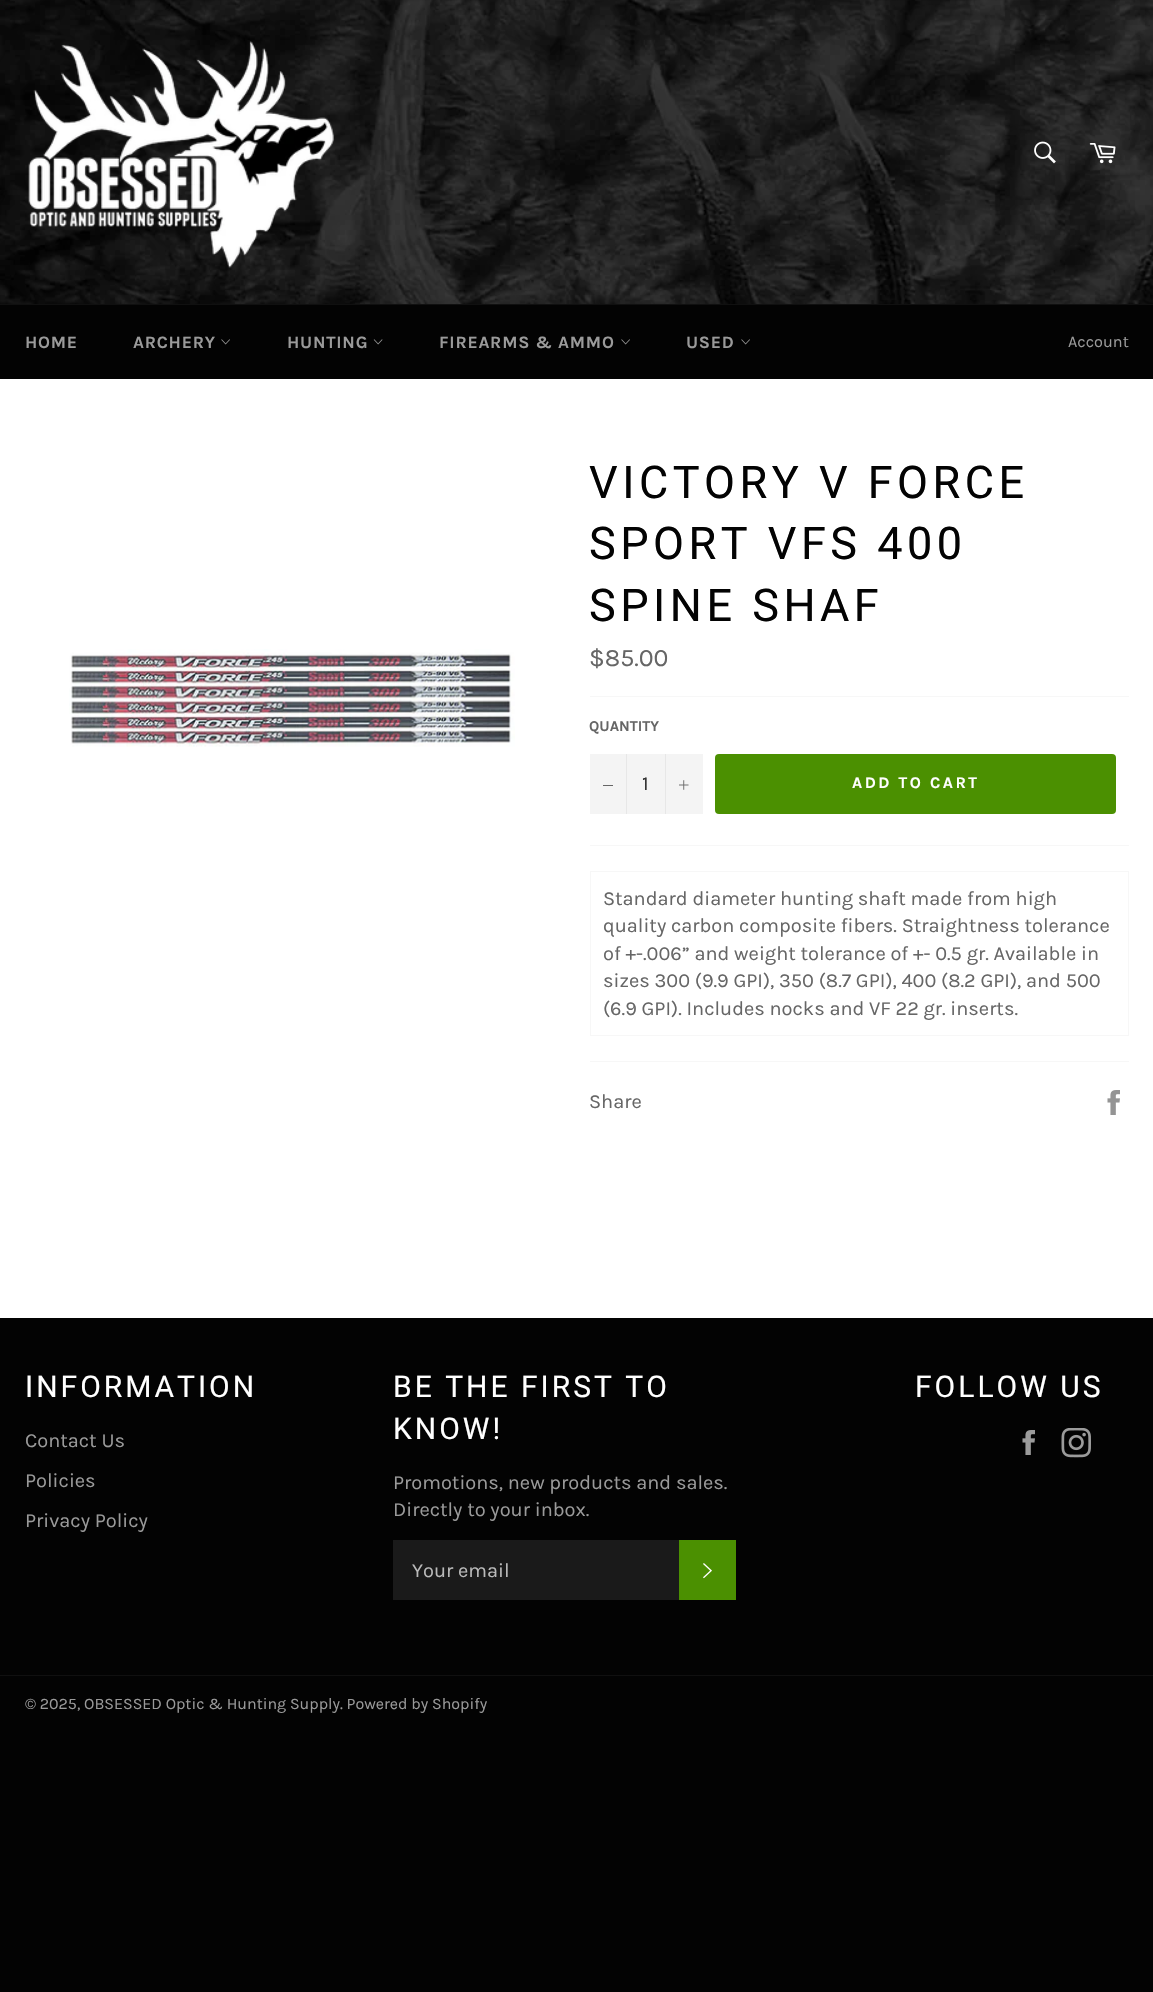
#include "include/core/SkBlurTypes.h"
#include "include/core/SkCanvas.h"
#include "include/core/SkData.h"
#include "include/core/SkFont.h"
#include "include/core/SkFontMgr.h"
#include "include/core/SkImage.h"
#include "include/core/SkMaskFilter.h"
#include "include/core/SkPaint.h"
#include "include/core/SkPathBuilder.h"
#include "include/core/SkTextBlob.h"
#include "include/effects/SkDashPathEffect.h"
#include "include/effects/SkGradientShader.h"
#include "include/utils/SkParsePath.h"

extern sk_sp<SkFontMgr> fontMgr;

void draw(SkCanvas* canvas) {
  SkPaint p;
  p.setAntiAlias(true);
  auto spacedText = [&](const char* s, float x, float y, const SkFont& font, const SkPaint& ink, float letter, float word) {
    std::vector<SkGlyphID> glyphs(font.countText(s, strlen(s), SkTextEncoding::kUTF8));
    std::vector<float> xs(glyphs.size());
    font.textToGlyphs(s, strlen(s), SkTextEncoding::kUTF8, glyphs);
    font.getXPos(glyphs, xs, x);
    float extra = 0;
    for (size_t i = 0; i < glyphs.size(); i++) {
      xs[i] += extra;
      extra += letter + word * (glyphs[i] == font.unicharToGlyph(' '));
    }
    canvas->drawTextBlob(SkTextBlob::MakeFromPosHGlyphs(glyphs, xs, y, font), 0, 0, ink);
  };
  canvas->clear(SkColorSetRGB(3, 3, 3));
  canvas->drawImageRect(SkImages::DeferredFromEncodedData(SkData::MakeFromFileName("images/1.png")), SkRect::MakeLTRB(0, 0, 1153, 304), SkSamplingOptions());
  canvas->drawImageRect(SkImages::DeferredFromEncodedData(SkData::MakeFromFileName("images/2.png")), SkRect::MakeLTRB(28, 41, 334, 268), SkSamplingOptions());
  canvas->drawImageRect(SkImages::DeferredFromEncodedData(SkData::MakeFromFileName("images/3.png")), SkRect::MakeLTRB(1034, 141, 1056, 164), SkSamplingOptions());
  canvas->drawImageRect(SkImages::DeferredFromEncodedData(SkData::MakeFromFileName("images/4.png")), SkRect::MakeLTRB(1089, 143, 1116, 164), SkSamplingOptions());
  p.setColor(SkColorSetRGB(16, 16, 16));
  canvas->drawRect(SkRect::MakeLTRB(0, 304, 1153, 305), p);
  canvas->drawImageRect(SkImages::DeferredFromEncodedData(SkData::MakeFromFileName("images/5.png")), SkRect::MakeLTRB(221, 339, 230, 345), SkSamplingOptions());
  canvas->drawImageRect(SkImages::DeferredFromEncodedData(SkData::MakeFromFileName("images/6.png")), SkRect::MakeLTRB(373, 339, 383, 345), SkSamplingOptions());
  canvas->drawImageRect(SkImages::DeferredFromEncodedData(SkData::MakeFromFileName("images/5.png")), SkRect::MakeLTRB(621, 339, 630, 345), SkSamplingOptions());
  canvas->drawImageRect(SkImages::DeferredFromEncodedData(SkData::MakeFromFileName("images/5.png")), SkRect::MakeLTRB(741, 339, 750, 345), SkSamplingOptions());
  p.setColor(SK_ColorWHITE);
  canvas->drawRect(SkRect::MakeLTRB(0, 379, 1153, 1318), p);
  canvas->drawImageRect(SkImages::DeferredFromEncodedData(SkData::MakeFromFileName("images/7.png")), SkRect::MakeLTRB(69, 649, 515, 747), SkSamplingOptions());
  p.setColor(SkColorSetRGB(247, 247, 247));
  canvas->drawRect(SkRect::MakeLTRB(590, 696, 1129, 697), p);
  p.setColor(SkColorSetRGB(244, 244, 244));
  canvas->drawRect(SkRect::MakeLTRB(590, 754, 703, 814), p);
  p.setColor(SkColorSetRGB(231, 231, 231));
  canvas->drawRect(SkRect::MakeLTRB(626, 754, 627, 814), p);
  p.setColor(SkColorSetRGB(102, 102, 102));
  canvas->drawRect(SkRect::MakeLTRB(603, 785, 613, 786), p);
  p.setColor(SkColorSetRGB(231, 231, 231));
  canvas->drawRect(SkRect::MakeLTRB(665, 754, 666, 814), p);
  canvas->drawImageRect(SkImages::DeferredFromEncodedData(SkData::MakeFromFileName("images/8.png")), SkRect::MakeLTRB(679, 780, 689, 790), SkSamplingOptions());
  p.setColor(SkColorSetRGB(75, 144, 1));
  canvas->drawRoundRect(SkRect::MakeLTRB(715, 754, 1116, 814), 4, 4, p);
  p.setColor(SkColorSetRGB(247, 247, 247));
  canvas->drawRect(SkRect::MakeLTRB(590, 845, 1129, 846), p);
  canvas->drawRect(SkRect::MakeLTRB(590, 871, 1129, 872), p);
  canvas->drawRect(SkRect::MakeLTRB(1128, 871, 1129, 1036), p);
  canvas->drawRect(SkRect::MakeLTRB(590, 1035, 1129, 1036), p);
  canvas->drawRect(SkRect::MakeLTRB(590, 871, 591, 1036), p);
  canvas->drawRect(SkRect::MakeLTRB(590, 1061, 1129, 1062), p);
  canvas->drawImageRect(SkImages::DeferredFromEncodedData(SkData::MakeFromFileName("images/9.png")), SkRect::MakeLTRB(1107, 1090, 1120, 1115), SkSamplingOptions());
  p.setColor(SkColorSetRGB(26, 26, 26));
  canvas->drawRect(SkRect::MakeLTRB(393, 1540, 679, 1600), p);
  p.setColor(SkColorSetRGB(75, 144, 1));
  canvas->drawRect(SkRect::MakeLTRB(679, 1540, 736, 1600), p);
  canvas->drawImageRect(SkImages::DeferredFromEncodedData(SkData::MakeFromFileName("images/10.png")), SkRect::MakeLTRB(703, 1563, 712, 1579), SkSamplingOptions());
  canvas->drawImageRect(SkImages::DeferredFromEncodedData(SkData::MakeFromFileName("images/11.png")), SkRect::MakeLTRB(1022, 1430, 1035, 1455), SkSamplingOptions());
  canvas->drawImageRect(SkImages::DeferredFromEncodedData(SkData::MakeFromFileName("images/12.png")), SkRect::MakeLTRB(1061, 1428, 1091, 1458), SkSamplingOptions());
  p.setColor(SkColorSetRGB(16, 16, 16));
  canvas->drawRect(SkRect::MakeLTRB(0, 1675, 1153, 1676), p);
  SkFont font1(fontMgr->matchFamilyStyle("Karla", SkFontStyle::Bold()), 17.5f);
  font1.setSubpixel(true);
  p.setColor(SkColorSetRGB(154, 154, 154));
  spacedText("HOME", 25, 348, font1, p, 0.75f, 0);
  spacedText("ARCHERY", 133, 348, font1, p, 0.75f, 0);
  spacedText("HUNTING", 287, 348, font1, p, 0.75f, 0);
  spacedText("FIREARMS & AMMO", 439, 348, font1, p, 0.75f, 0);
  spacedText("USED", 686, 348, font1, p, 0.75f, 0);
  SkFont font2(fontMgr->matchFamilyStyle("Karla", SkFontStyle::Normal()), 16.25f);
  font2.setSubpixel(true);
  canvas->drawString("Account", 1068, 347, font2, p);
  SkFont font3(fontMgr->matchFamilyStyle("Roboto", SkFontStyle::Normal()), 45);
  font3.setSubpixel(true);
  p.setColor(SkColorSetRGB(3, 3, 3));
  spacedText("VICTORY V FORCE", 589, 498, font3, p, 4.5f, 0);
  spacedText("SPORT VFS 400", 589, 559, font3, p, 4.5f, 0);
  spacedText("SPINE SHAF", 589, 621, font3, p, 4.5f, 0);
  SkFont font4(fontMgr->matchFamilyStyle("Karla", SkFontStyle::Normal()), 25);
  font4.setSubpixel(true);
  p.setColor(SkColorSetRGB(102, 102, 102));
  canvas->drawString("$85.00", 589, 666, font4, p);
  SkFont font5(fontMgr->matchFamilyStyle("Karla", SkFontStyle::Bold()), 15);
  font5.setSubpixel(true);
  canvas->drawString("QUANTITY", 589, 731, font5, p);
  SkFont font6(fontMgr->matchFamilyStyle("Karla", SkFontStyle::Normal()), 20);
  font6.setSubpixel(true);
  p.setColor(SkColorSetRGB(51, 51, 51));
  canvas->drawString("1", 642, 790, font6, p);
  SkFont font7(fontMgr->matchFamilyStyle("Karla", SkFontStyle::Bold()), 16.25f);
  font7.setSubpixel(true);
  p.setColor(SK_ColorWHITE);
  spacedText("ADD TO CART", 852, 788, font7, p, 2.5f, 0);
  p.setColor(SkColorSetRGB(102, 102, 102));
  canvas->drawString("Standard diameter hunting shaft made from high", 603, 905, font6, p);
  canvas->drawString("quality carbon composite fibers. Straightness tolerance", 603, 932, font6, p);
  canvas->drawString("of +-.006” and weight tolerance of +- 0.5 gr. Available in", 603, 960, font6, p);
  canvas->drawString("sizes 300 (9.9 GPI), 350 (8.7 GPI), 400 (8.2 GPI), and 500", 603, 987, font6, p);
  canvas->drawString("(6.9 GPI). Includes nocks and VF 22 gr. inserts.", 603, 1015, font6, p);
  canvas->drawString("Share", 589, 1108, font6, p);
  SkFont font8(fontMgr->matchFamilyStyle("Roboto", SkFontStyle::Normal()), 30);
  font8.setSubpixel(true);
  p.setColor(SK_ColorWHITE);
  spacedText("INFORMATION", 25, 1397, font8, p, 3, 0);
  p.setColor(SkColorSetRGB(154, 154, 154));
  canvas->drawString("Contact Us", 25, 1447, font6, p);
  canvas->drawString("Policies", 25, 1487, font6, p);
  canvas->drawString("Privacy Policy", 25, 1527, font6, p);
  p.setColor(SK_ColorWHITE);
  spacedText("BE THE FIRST TO", 393, 1397, font8, p, 3, 0);
  spacedText("KNOW!", 393, 1439, font8, p, 3, 0);
  p.setColor(SkColorSetRGB(154, 154, 154));
  canvas->drawString("Promotions, new products and sales.", 393, 1489, font6, p);
  canvas->drawString("Directly to your inbox.", 393, 1516, font6, p);
  p.setColor(SkColorSetRGB(186, 186, 186));
  canvas->drawString("Your email", 412, 1577, font6, p);
  p.setColor(SK_ColorWHITE);
  spacedText("FOLLOW US", 915, 1397, font8, p, 3, 0);
  SkFont font9(fontMgr->matchFamilyStyle("Karla", SkFontStyle::Normal()), 16);
  font9.setSubpixel(true);
  p.setColor(SkColorSetRGB(154, 154, 154));
  canvas->drawString("© 2025, OBSESSED Optic & Hunting Supply. Powered by Shopify", 25, 1709, font9, p);
}
